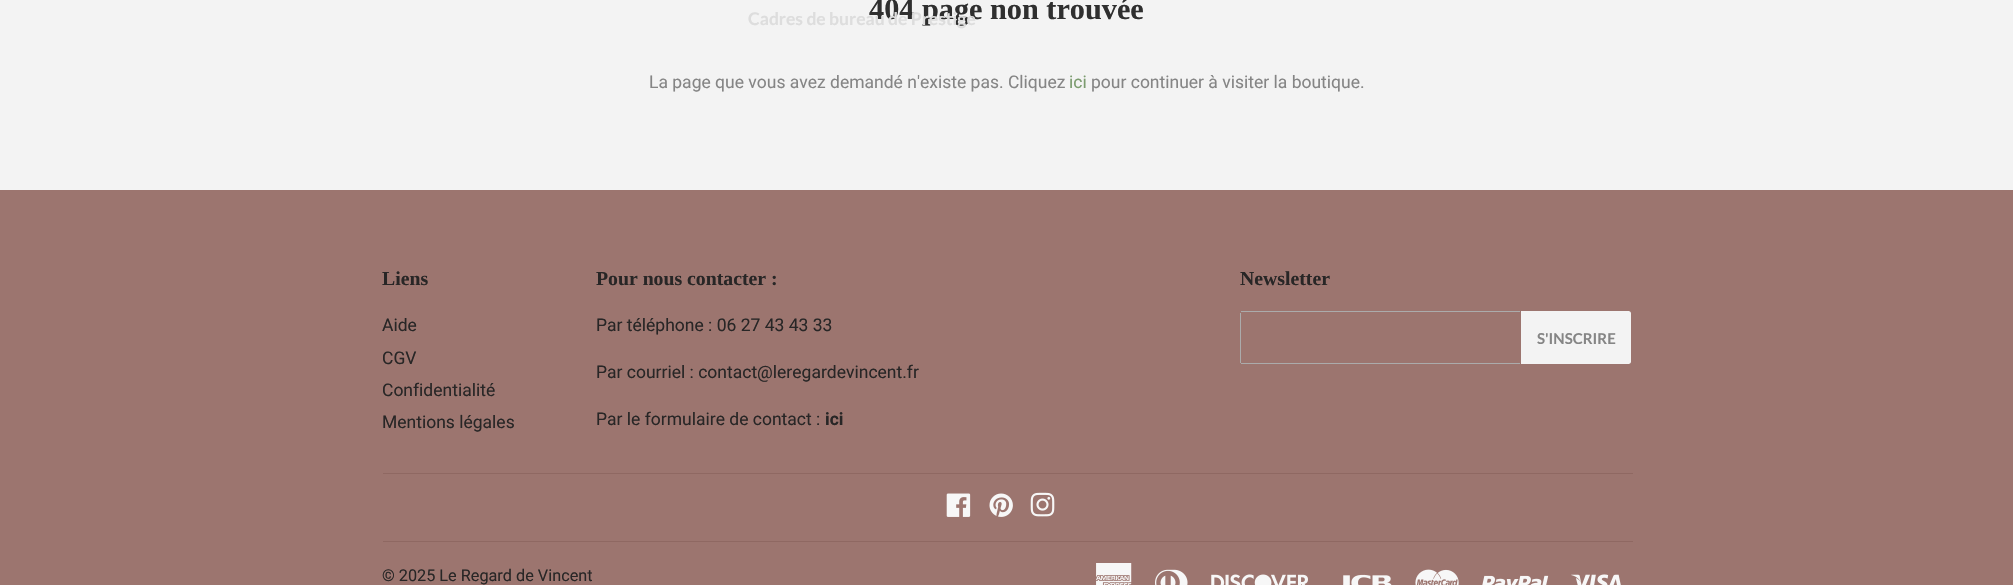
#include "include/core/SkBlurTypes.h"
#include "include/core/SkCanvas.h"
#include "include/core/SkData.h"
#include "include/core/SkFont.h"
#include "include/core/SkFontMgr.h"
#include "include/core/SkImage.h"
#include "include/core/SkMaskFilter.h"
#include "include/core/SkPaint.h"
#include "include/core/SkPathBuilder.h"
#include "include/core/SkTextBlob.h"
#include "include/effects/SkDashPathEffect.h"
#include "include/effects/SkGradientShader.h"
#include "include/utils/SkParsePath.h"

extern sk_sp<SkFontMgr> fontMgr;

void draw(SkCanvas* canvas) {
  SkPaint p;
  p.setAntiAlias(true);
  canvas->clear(SkColorSetRGB(243, 243, 243));
  p.setColor(SkColorSetRGB(156, 117, 111));
  canvas->drawRect(SkRect::MakeLTRB(0, 190, 2013, 585), p);
  p.setColor(SkColorSetRGB(171, 171, 171));
  canvas->drawRect(SkRect::MakeLTRB(1241, 311, 1520, 312), p);
  canvas->drawRect(SkRect::MakeLTRB(1241, 363, 1520, 364), p);
  canvas->drawRect(SkRect::MakeLTRB(1240, 313, 1241, 363), p);
  p.setColor(SkColorSetRGB(243, 243, 243));
  canvas->drawPath(SkPathBuilder().moveTo(1521, 311).lineTo(1628.5f, 311).cubicTo(1630, 311, 1631, 312, 1631, 313.5f).lineTo(1631, 361.5f).cubicTo(1631, 363, 1630, 364, 1628.5f, 364).lineTo(1521, 364).close().detach(), p);
  p.setColor(SkColorSetRGB(143, 104, 98));
  canvas->drawRect(SkRect::MakeLTRB(383, 473, 1633, 474), p);
  canvas->drawImageRect(SkImages::DeferredFromEncodedData(SkData::MakeFromFileName("images/1.png")), SkRect::MakeLTRB(946, 493, 971, 517), SkSamplingOptions());
  canvas->drawImageRect(SkImages::DeferredFromEncodedData(SkData::MakeFromFileName("images/2.png")), SkRect::MakeLTRB(989, 493, 1013, 517), SkSamplingOptions());
  canvas->drawImageRect(SkImages::DeferredFromEncodedData(SkData::MakeFromFileName("images/3.png")), SkRect::MakeLTRB(1030, 492, 1055, 517), SkSamplingOptions());
  canvas->drawRect(SkRect::MakeLTRB(383, 541, 1633, 542), p);
  canvas->drawImageRect(SkImages::DeferredFromEncodedData(SkData::MakeFromFileName("images/4.png")), SkRect::MakeLTRB(1096, 563, 1132, 585), SkSamplingOptions());
  canvas->drawImageRect(SkImages::DeferredFromEncodedData(SkData::MakeFromFileName("images/5.png")), SkRect::MakeLTRB(1155, 569, 1188, 585), SkSamplingOptions());
  canvas->drawImageRect(SkImages::DeferredFromEncodedData(SkData::MakeFromFileName("images/6.png")), SkRect::MakeLTRB(1211, 574, 1308, 585), SkSamplingOptions());
  canvas->drawImageRect(SkImages::DeferredFromEncodedData(SkData::MakeFromFileName("images/7.png")), SkRect::MakeLTRB(1343, 574, 1392, 585), SkSamplingOptions());
  canvas->drawImageRect(SkImages::DeferredFromEncodedData(SkData::MakeFromFileName("images/8.png")), SkRect::MakeLTRB(1415, 569, 1459, 585), SkSamplingOptions());
  canvas->drawImageRect(SkImages::DeferredFromEncodedData(SkData::MakeFromFileName("images/9.png")), SkRect::MakeLTRB(1482, 575, 1549, 585), SkSamplingOptions());
  canvas->drawImageRect(SkImages::DeferredFromEncodedData(SkData::MakeFromFileName("images/10.png")), SkRect::MakeLTRB(1571, 574, 1621, 585), SkSamplingOptions());
  SkFont font1(fontMgr->matchFamilyStyle("Liberation Serif", SkFontStyle::Bold()), 30.25f);
  font1.setSubpixel(true);
  p.setColor(SkColorSetRGB(47, 47, 47));
  canvas->drawString("404 page non trouvée", 869, 19, font1, p);
  SkFont font2(fontMgr->matchFamilyStyle("Roboto", SkFontStyle::Normal()), 17.5f);
  font2.setSubpixel(true);
  p.setColor(SkColorSetRGB(133, 133, 133));
  canvas->drawString("La page que vous avez demandé n'existe pas. Cliquez", 649, 88, font2, p);
  p.setColor(SkColorSetRGB(124, 156, 111));
  canvas->drawString("ici", 1069, 88, font2, p);
  p.setColor(SkColorSetRGB(133, 133, 133));
  canvas->drawString("pour continuer à visiter la boutique.", 1091, 88, font2, p);
  SkFont font3(fontMgr->matchFamilyStyle("Lato", SkFontStyle::Bold()), 17.5f);
  font3.setSubpixel(true);
  p.setColor(SkColorSetRGB(221, 221, 221));
  canvas->drawString("Cadres de bureau de Prestige", 748, 25, font3, p);
  SkFont font4(fontMgr->matchFamilyStyle("Liberation Serif", SkFontStyle::Bold()), 19.75f);
  font4.setSubpixel(true);
  p.setColor(SkColorSetRGB(40, 38, 38));
  canvas->drawString("Liens", 382, 285, font4, p);
  canvas->drawString("Aide", 382, 331, font2, p);
  canvas->drawString("CGV", 382, 364, font2, p);
  canvas->drawString("Confidentialité", 382, 396, font2, p);
  canvas->drawString("Mentions légales", 382, 428, font2, p);
  canvas->drawString("Pour nous contacter :", 596, 285, font4, p);
  canvas->drawString("Par téléphone : 06 27 43 43 33", 596, 331, font2, p);
  canvas->drawString("Par courriel : contact@leregardevincent.fr", 596, 378, font2, p);
  canvas->drawString("Par le formulaire de contact :", 596, 425, font2, p);
  SkFont font5(fontMgr->matchFamilyStyle("Roboto", SkFontStyle::Bold()), 17.5f);
  font5.setSubpixel(true);
  canvas->drawString("ici", 825, 425, font5, p);
  canvas->drawString("Newsletter", 1240, 285, font4, p);
  SkFont font6(fontMgr->matchFamilyStyle("Lato", SkFontStyle::Bold()), 15);
  font6.setSubpixel(true);
  p.setColor(SkColorSetRGB(133, 133, 133));
  canvas->drawString("S'INSCRIRE", 1537, 344, font6, p);
  SkFont font7(fontMgr->matchFamilyStyle("Roboto", SkFontStyle::Normal()), 16.25f);
  font7.setSubpixel(true);
  p.setColor(SkColorSetRGB(40, 38, 38));
  canvas->drawString("© 2025 Le Regard de Vincent", 382, 581, font7, p);
}
